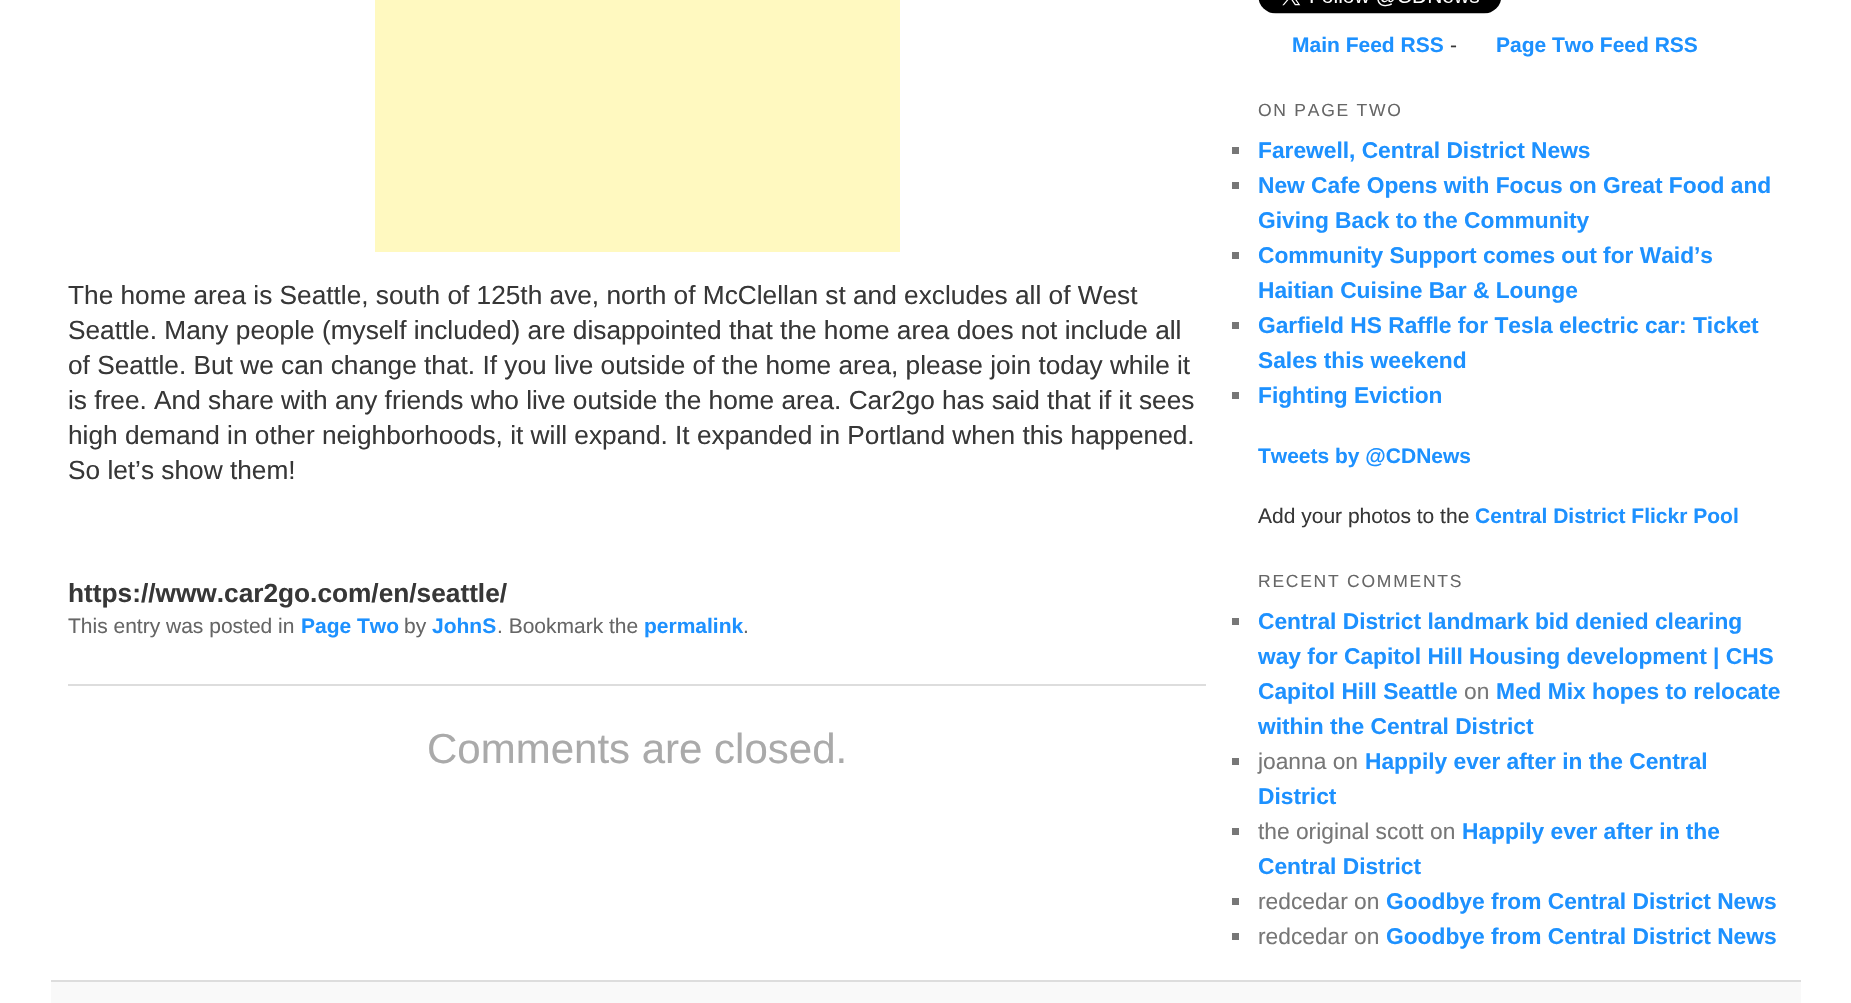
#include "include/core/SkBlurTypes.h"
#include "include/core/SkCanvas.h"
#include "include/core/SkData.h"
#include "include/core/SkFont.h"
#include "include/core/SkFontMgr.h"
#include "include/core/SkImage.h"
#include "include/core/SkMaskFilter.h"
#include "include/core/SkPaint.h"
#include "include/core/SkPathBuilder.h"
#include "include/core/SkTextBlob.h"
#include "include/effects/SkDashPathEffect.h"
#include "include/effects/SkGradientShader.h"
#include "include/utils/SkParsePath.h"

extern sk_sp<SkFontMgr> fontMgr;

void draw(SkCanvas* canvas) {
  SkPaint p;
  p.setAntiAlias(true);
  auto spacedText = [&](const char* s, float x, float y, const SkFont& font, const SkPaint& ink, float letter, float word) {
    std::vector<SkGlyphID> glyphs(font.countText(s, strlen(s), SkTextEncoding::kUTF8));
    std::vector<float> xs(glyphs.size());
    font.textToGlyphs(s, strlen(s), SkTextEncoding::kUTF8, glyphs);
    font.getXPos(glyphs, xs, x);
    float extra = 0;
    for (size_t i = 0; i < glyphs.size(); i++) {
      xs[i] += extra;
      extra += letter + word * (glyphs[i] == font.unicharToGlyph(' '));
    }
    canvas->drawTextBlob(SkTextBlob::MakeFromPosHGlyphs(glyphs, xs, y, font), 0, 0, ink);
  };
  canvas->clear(SK_ColorWHITE);
  p.setColor(SkColorSetRGB(221, 221, 221));
  canvas->drawRect(SkRect::MakeLTRB(68, 684, 1206, 686), p);
  p.setColor(SkColorSetRGB(255, 249, 192));
  canvas->drawRect(SkRect::MakeLTRB(375, 0, 900, 252), p);
  canvas->drawImageRect(SkImages::DeferredFromEncodedData(SkData::MakeFromFileName("images/1.png")), SkRect::MakeLTRB(1258, 0, 1501, 14), SkSamplingOptions());
  p.setColor(SkColorSetRGB(119, 119, 119));
  canvas->drawRect(SkRect::MakeLTRB(1232, 147, 1239, 154), p);
  canvas->drawRect(SkRect::MakeLTRB(1232, 182, 1239, 189), p);
  canvas->drawRect(SkRect::MakeLTRB(1232, 252, 1239, 259), p);
  canvas->drawRect(SkRect::MakeLTRB(1232, 322, 1239, 329), p);
  canvas->drawRect(SkRect::MakeLTRB(1232, 392, 1239, 399), p);
  canvas->drawRect(SkRect::MakeLTRB(1232, 618, 1239, 625), p);
  canvas->drawRect(SkRect::MakeLTRB(1232, 758, 1239, 765), p);
  canvas->drawRect(SkRect::MakeLTRB(1232, 828, 1239, 835), p);
  canvas->drawRect(SkRect::MakeLTRB(1232, 898, 1239, 905), p);
  canvas->drawRect(SkRect::MakeLTRB(1232, 933, 1239, 940), p);
  p.setColor(SkColorSetRGB(249, 249, 249));
  canvas->drawRect(SkRect::MakeLTRB(51, 982, 1801, 1003), p);
  p.setColor(SkColorSetRGB(221, 221, 221));
  canvas->drawRect(SkRect::MakeLTRB(51, 980, 1801, 982), p);
  SkFont font1(fontMgr->matchFamilyStyle("Liberation Sans", SkFontStyle::Normal()), 26.25f);
  font1.setSubpixel(true);
  p.setColor(SkColorSetRGB(55, 55, 55));
  canvas->drawString("The home area is Seattle, south of 125th ave, north of McClellan st and excludes all of West", 68, 304, font1, p);
  canvas->drawString("Seattle. Many people (myself included) are disappointed that the home area does not include all", 68, 339, font1, p);
  canvas->drawString("of Seattle. But we can change that. If you live outside of the home area, please join today while it", 68, 374, font1, p);
  canvas->drawString("is free. And share with any friends who live outside the home area. Car2go has said that if it sees", 68, 409, font1, p);
  canvas->drawString("high demand in other neighborhoods, it will expand. It expanded in Portland when this happened.", 68, 444, font1, p);
  canvas->drawString("So let’s show them!", 68, 479, font1, p);
  SkFont font2(fontMgr->matchFamilyStyle("Liberation Sans", SkFontStyle::Bold()), 26.25f);
  font2.setSubpixel(true);
  canvas->drawString("https://www.car2go.com/en/seattle/", 68, 602, font2, p);
  SkFont font3(fontMgr->matchFamilyStyle("Liberation Sans", SkFontStyle::Normal()), 21);
  font3.setSubpixel(true);
  p.setColor(SkColorSetRGB(102, 102, 102));
  canvas->drawString("This entry was posted in", 68, 633, font3, p);
  SkFont font4(fontMgr->matchFamilyStyle("Liberation Sans", SkFontStyle::Bold()), 21);
  font4.setSubpixel(true);
  p.setColor(SkColorSetRGB(29, 145, 255));
  canvas->drawString("Page Two", 301, 633, font4, p);
  p.setColor(SkColorSetRGB(102, 102, 102));
  canvas->drawString("by", 404, 633, font3, p);
  p.setColor(SkColorSetRGB(29, 145, 255));
  canvas->drawString("JohnS", 432, 633, font4, p);
  p.setColor(SkColorSetRGB(102, 102, 102));
  canvas->drawString(". Bookmark the", 497, 633, font3, p);
  p.setColor(SkColorSetRGB(29, 145, 255));
  canvas->drawString("permalink", 644, 633, font4, p);
  p.setColor(SkColorSetRGB(102, 102, 102));
  canvas->drawString(".", 743, 633, font3, p);
  SkFont font5(fontMgr->matchFamilyStyle("Liberation Sans", SkFontStyle::Normal()), 42);
  font5.setSubpixel(true);
  p.setColor(SkColorSetRGB(170, 170, 170));
  canvas->drawString("Comments are closed.", 427, 763, font5, p);
  p.setColor(SkColorSetRGB(29, 145, 255));
  canvas->drawString("Main Feed RSS", 1292, 52, font4, p);
  p.setColor(SkColorSetRGB(55, 55, 55));
  canvas->drawString("-", 1450, 52, font3, p);
  p.setColor(SkColorSetRGB(29, 145, 255));
  canvas->drawString("Page Two Feed RSS", 1496, 52, font4, p);
  SkFont font6(fontMgr->matchFamilyStyle("Liberation Sans", SkFontStyle::Normal()), 17.5f);
  font6.setSubpixel(true);
  p.setColor(SkColorSetRGB(102, 102, 102));
  spacedText("ON PAGE TWO", 1258, 116, font6, p, 1.75f, 0);
  SkFont font7(fontMgr->matchFamilyStyle("Liberation Sans", SkFontStyle::Bold()), 22.75f);
  font7.setSubpixel(true);
  p.setColor(SkColorSetRGB(29, 145, 255));
  canvas->drawString("Farewell, Central District News", 1258, 158, font7, p);
  canvas->drawString("New Cafe Opens with Focus on Great Food and", 1258, 193, font7, p);
  canvas->drawString("Giving Back to the Community", 1258, 228, font7, p);
  canvas->drawString("Community Support comes out for Waid’s", 1258, 263, font7, p);
  canvas->drawString("Haitian Cuisine Bar & Lounge", 1258, 298, font7, p);
  canvas->drawString("Garfield HS Raffle for Tesla electric car: Ticket", 1258, 333, font7, p);
  canvas->drawString("Sales this weekend", 1258, 368, font7, p);
  canvas->drawString("Fighting Eviction", 1258, 403, font7, p);
  canvas->drawString("Tweets by @CDNews", 1258, 463, font4, p);
  p.setColor(SkColorSetRGB(55, 55, 55));
  canvas->drawString("Add your photos to the", 1258, 523, font3, p);
  p.setColor(SkColorSetRGB(29, 145, 255));
  canvas->drawString("Central District Flickr Pool", 1475, 523, font4, p);
  p.setColor(SkColorSetRGB(102, 102, 102));
  spacedText("RECENT COMMENTS", 1258, 587, font6, p, 1.75f, 0);
  p.setColor(SkColorSetRGB(29, 145, 255));
  canvas->drawString("Central District landmark bid denied clearing", 1258, 629, font7, p);
  canvas->drawString("way for Capitol Hill Housing development | CHS", 1258, 664, font7, p);
  canvas->drawString("Capitol Hill Seattle", 1258, 699, font7, p);
  SkFont font8(fontMgr->matchFamilyStyle("Liberation Sans", SkFontStyle::Normal()), 22.75f);
  font8.setSubpixel(true);
  p.setColor(SkColorSetRGB(119, 119, 119));
  canvas->drawString("on", 1464, 699, font8, p);
  p.setColor(SkColorSetRGB(29, 145, 255));
  canvas->drawString("Med Mix hopes to relocate", 1496, 699, font7, p);
  canvas->drawString("within the Central District", 1258, 734, font7, p);
  p.setColor(SkColorSetRGB(119, 119, 119));
  canvas->drawString("joanna on", 1258, 769, font8, p);
  p.setColor(SkColorSetRGB(29, 145, 255));
  canvas->drawString("Happily ever after in the Central", 1365, 769, font7, p);
  canvas->drawString("District", 1258, 804, font7, p);
  p.setColor(SkColorSetRGB(119, 119, 119));
  canvas->drawString("the original scott on", 1258, 839, font8, p);
  p.setColor(SkColorSetRGB(29, 145, 255));
  canvas->drawString("Happily ever after in the", 1462, 839, font7, p);
  canvas->drawString("Central District", 1258, 874, font7, p);
  p.setColor(SkColorSetRGB(119, 119, 119));
  canvas->drawString("redcedar on", 1258, 909, font8, p);
  p.setColor(SkColorSetRGB(29, 145, 255));
  canvas->drawString("Goodbye from Central District News", 1386, 909, font7, p);
  p.setColor(SkColorSetRGB(119, 119, 119));
  canvas->drawString("redcedar on", 1258, 944, font8, p);
  p.setColor(SkColorSetRGB(29, 145, 255));
  canvas->drawString("Goodbye from Central District News", 1386, 944, font7, p);
}
